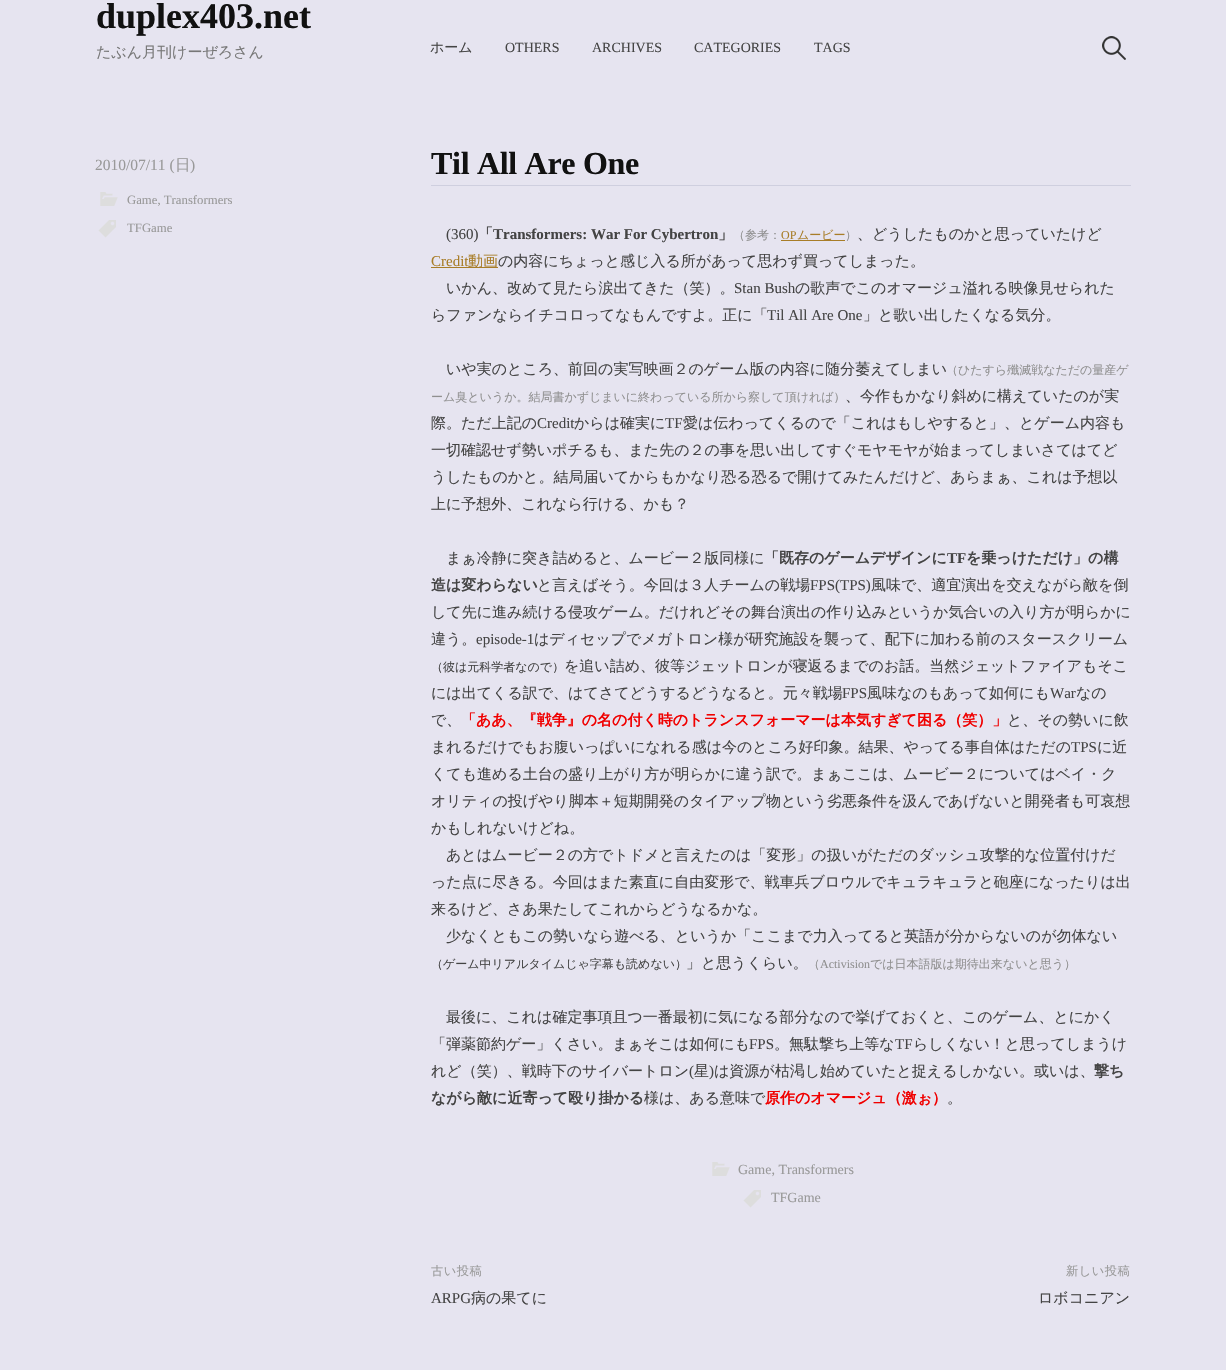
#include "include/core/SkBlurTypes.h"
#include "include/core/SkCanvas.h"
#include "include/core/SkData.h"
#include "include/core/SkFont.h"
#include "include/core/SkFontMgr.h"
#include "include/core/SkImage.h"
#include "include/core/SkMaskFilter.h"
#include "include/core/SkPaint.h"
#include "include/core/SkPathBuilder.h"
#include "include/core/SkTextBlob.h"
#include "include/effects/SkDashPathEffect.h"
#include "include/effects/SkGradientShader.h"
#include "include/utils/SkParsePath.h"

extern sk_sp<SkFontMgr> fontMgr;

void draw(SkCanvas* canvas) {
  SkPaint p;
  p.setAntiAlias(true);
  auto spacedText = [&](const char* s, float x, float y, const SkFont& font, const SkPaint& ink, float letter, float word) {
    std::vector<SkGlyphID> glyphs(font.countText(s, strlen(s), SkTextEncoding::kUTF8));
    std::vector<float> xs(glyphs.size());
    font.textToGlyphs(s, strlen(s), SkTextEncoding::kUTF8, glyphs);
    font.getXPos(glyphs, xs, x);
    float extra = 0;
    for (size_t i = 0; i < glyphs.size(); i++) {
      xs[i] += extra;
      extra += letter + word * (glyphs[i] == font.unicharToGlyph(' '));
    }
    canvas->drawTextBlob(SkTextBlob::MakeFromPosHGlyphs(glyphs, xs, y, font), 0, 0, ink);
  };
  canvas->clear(SkColorSetRGB(230, 228, 240));
  canvas->drawImageRect(SkImages::DeferredFromEncodedData(SkData::MakeFromFileName("images/1.png")), SkRect::MakeLTRB(1102, 36, 1126, 60), SkSamplingOptions());
  canvas->drawImageRect(SkImages::DeferredFromEncodedData(SkData::MakeFromFileName("images/2.png")), SkRect::MakeLTRB(100, 192, 118, 206), SkSamplingOptions());
  canvas->drawImageRect(SkImages::DeferredFromEncodedData(SkData::MakeFromFileName("images/3.png")), SkRect::MakeLTRB(98, 220, 116, 238), SkSamplingOptions());
  p.setColor(SkColorSetRGB(207, 207, 223));
  canvas->drawRect(SkRect::MakeLTRB(431, 185, 1131, 186), p);
  p.setColor(SkColorSetRGB(168, 125, 40));
  canvas->drawRect(SkRect::MakeLTRB(781, 240, 845, 241), p);
  canvas->drawRect(SkRect::MakeLTRB(431, 267, 498, 268), p);
  canvas->drawImageRect(SkImages::DeferredFromEncodedData(SkData::MakeFromFileName("images/2.png")), SkRect::MakeLTRB(712, 1162, 730, 1176), SkSamplingOptions());
  canvas->drawImageRect(SkImages::DeferredFromEncodedData(SkData::MakeFromFileName("images/3.png")), SkRect::MakeLTRB(743, 1190, 761, 1208), SkSamplingOptions());
  SkFont font1(fontMgr->matchFamilyStyle("Liberation Serif", SkFontStyle::Bold()), 36);
  font1.setSubpixel(true);
  p.setColor(SkColorSetRGB(17, 17, 17));
  canvas->drawString("duplex403.net", 96, 28, font1, p);
  SkFont font2(fontMgr->matchFamilyStyle("WenQuanYi Zen Hei", SkFontStyle(500, SkFontStyle::kNormal_Width, SkFontStyle::kUpright_Slant)), 15);
  font2.setSubpixel(true);
  p.setColor(SkColorSetRGB(119, 119, 119));
  canvas->drawString("たぶん月刊けーぜろさん", 96, 57, font2, p);
  SkFont font3(fontMgr->matchFamilyStyle("WenQuanYi Zen Hei", SkFontStyle(500, SkFontStyle::kNormal_Width, SkFontStyle::kUpright_Slant)), 14);
  font3.setSubpixel(true);
  p.setColor(SkColorSetRGB(68, 68, 68));
  canvas->drawString("ホーム", 430, 52, font3, p);
  SkFont font4(fontMgr->matchFamilyStyle("Liberation Serif", SkFontStyle::Normal()), 14);
  font4.setSubpixel(true);
  canvas->drawString("OTHERS", 505, 52, font4, p);
  canvas->drawString("ARCHIVES", 592, 52, font4, p);
  canvas->drawString("CATEGORIES", 694, 52, font4, p);
  canvas->drawString("TAGS", 814, 52, font4, p);
  SkFont font5(fontMgr->matchFamilyStyle("Liberation Serif", SkFontStyle::Normal()), 15.5f);
  font5.setSubpixel(true);
  p.setColor(SkColorSetRGB(153, 153, 153));
  canvas->drawString("2010/07/11 (", 95, 170, font5, p);
  SkFont font6(fontMgr->matchFamilyStyle("WenQuanYi Zen Hei", SkFontStyle(500, SkFontStyle::kNormal_Width, SkFontStyle::kUpright_Slant)), 15.5f);
  font6.setSubpixel(true);
  canvas->drawString("日", 175, 170, font6, p);
  canvas->drawString(")", 190, 170, font5, p);
  SkFont font7(fontMgr->matchFamilyStyle("Liberation Serif", SkFontStyle::Normal()), 12.75f);
  font7.setSubpixel(true);
  canvas->drawString("Game, Transformers", 127, 204, font7, p);
  canvas->drawString("TFGame", 127, 232, font7, p);
  SkFont font8(fontMgr->matchFamilyStyle("Liberation Serif", SkFontStyle::Bold()), 32);
  font8.setSubpixel(true);
  p.setColor(SkColorSetRGB(17, 17, 17));
  spacedText("Til All Are One", 431, 174, font8, p, -0.3f, 0);
  SkFont font9(fontMgr->matchFamilyStyle("Liberation Serif", SkFontStyle::Normal()), 15);
  font9.setSubpixel(true);
  p.setColor(SkColorSetRGB(68, 68, 68));
  canvas->drawString("(360)", 446, 239, font9, p);
  SkFont font10(fontMgr->matchFamilyStyle("WenQuanYi Zen Hei", SkFontStyle::Bold()), 15);
  font10.setSubpixel(true);
  canvas->drawString("「", 478, 239, font10, p);
  SkFont font11(fontMgr->matchFamilyStyle("Liberation Serif", SkFontStyle::Bold()), 15);
  font11.setSubpixel(true);
  canvas->drawString("Transformers: War For Cybertron", 493, 239, font11, p);
  canvas->drawString("」", 718, 239, font10, p);
  SkFont font12(fontMgr->matchFamilyStyle("WenQuanYi Zen Hei", SkFontStyle(500, SkFontStyle::kNormal_Width, SkFontStyle::kUpright_Slant)), 12);
  font12.setSubpixel(true);
  p.setColor(SkColorSetRGB(144, 144, 144));
  canvas->drawString("（参考：", 733, 239, font12, p);
  SkFont font13(fontMgr->matchFamilyStyle("Liberation Serif", SkFontStyle::Normal()), 12);
  font13.setSubpixel(true);
  p.setColor(SkColorSetRGB(168, 125, 40));
  canvas->drawString("OP", 781, 239, font13, p);
  canvas->drawString("ムービー", 797, 239, font12, p);
  p.setColor(SkColorSetRGB(144, 144, 144));
  canvas->drawString("）", 845, 239, font12, p);
  p.setColor(SkColorSetRGB(68, 68, 68));
  canvas->drawString("、どうしたものかと思っていたけど", 857, 239, font2, p);
  p.setColor(SkColorSetRGB(168, 125, 40));
  canvas->drawString("Credit", 431, 266, font9, p);
  canvas->drawString("動画", 468, 266, font2, p);
  p.setColor(SkColorSetRGB(68, 68, 68));
  canvas->drawString("の内容にちょっと感じ入る所があって思わず買ってしまった。", 498, 266, font2, p);
  canvas->drawString("いかん、改めて見たら涙出てきた（笑）。", 446, 293, font2, p);
  canvas->drawString("Stan Bush", 734, 293, font9, p);
  canvas->drawString("の歌声でこのオマージュ溢れる映像見せられた", 795, 293, font2, p);
  canvas->drawString("らファンならイチコロってなもんですよ。正に「", 431, 320, font2, p);
  canvas->drawString("Til All Are One", 767, 320, font9, p);
  canvas->drawString("」と歌い出したくなる気分。", 863, 320, font2, p);
  canvas->drawString("いや実のところ、前回の実写映画２のゲーム版の内容に随分萎えてしまい", 446, 374, font2, p);
  p.setColor(SkColorSetRGB(144, 144, 144));
  canvas->drawString("（ひたすら殲滅戦なただの量産ゲ", 946, 374, font12, p);
  canvas->drawString("ーム臭というか。結局書かずじまいに終わっている所から察して頂ければ）", 431, 401, font12, p);
  p.setColor(SkColorSetRGB(68, 68, 68));
  canvas->drawString("、今作もかなり斜めに構えていたのが実", 845, 401, font2, p);
  canvas->drawString("際。ただ上記の", 431, 428, font2, p);
  canvas->drawString("Credit", 537, 428, font9, p);
  canvas->drawString("からは確実に", 574, 428, font2, p);
  canvas->drawString("TF", 665, 428, font9, p);
  canvas->drawString("愛は伝わってくるので「これはもしやすると」、とゲーム内容も", 683, 428, font2, p);
  canvas->drawString("一切確認せず勢いポチるも、また先の２の事を思い出してすぐモヤモヤが始まってしまいさてはてど", 431, 455, font2, p);
  canvas->drawString("うしたものかと。結局届いてからもかなり恐る恐るで開けてみたんだけど、あらまぁ、これは予想以", 431, 482, font2, p);
  canvas->drawString("上に予想外、これなら行ける、かも？", 431, 509, font2, p);
  canvas->drawString("まぁ冷静に突き詰めると、ムービー２版同様に", 446, 563, font2, p);
  canvas->drawString("「既存のゲームデザインに", 764, 563, font10, p);
  canvas->drawString("TF", 947, 563, font11, p);
  canvas->drawString("を乗っけただけ」の構", 966, 563, font10, p);
  canvas->drawString("造は変わらない", 431, 590, font10, p);
  canvas->drawString("と言えばそう。今回は３人チームの戦場", 537, 590, font2, p);
  canvas->drawString("FPS(TPS)", 810, 590, font9, p);
  canvas->drawString("風味で、適宜演出を交えながら敵を倒", 871, 590, font2, p);
  canvas->drawString("して先に進み続ける侵攻ゲーム。だけれどその舞台演出の作り込みというか気合いの入り方が明らかに", 431, 617, font2, p);
  canvas->drawString("違う。", 431, 644, font2, p);
  canvas->drawString("episode-1", 476, 644, font9, p);
  canvas->drawString("はディセップでメガトロン様が研究施設を襲って、配下に加わる前のスタースクリーム", 534, 644, font2, p);
  canvas->drawString("（彼は元科学者なので）", 431, 671, font12, p);
  canvas->drawString("を追い詰め、彼等ジェットロンが寝返るまでのお話。当然ジェットファイアもそこ", 564, 671, font2, p);
  canvas->drawString("には出てくる訳で、はてさてどうするどうなると。元々戦場", 431, 698, font2, p);
  canvas->drawString("FPS", 842, 698, font9, p);
  canvas->drawString("風味なのもあって如何にも", 867, 698, font2, p);
  canvas->drawString("War", 1050, 698, font9, p);
  canvas->drawString("なの", 1076, 698, font2, p);
  canvas->drawString("で、", 431, 725, font2, p);
  p.setColor(SkColorSetRGB(240, 0, 0));
  canvas->drawString("「ああ、『戦争』の名の付く時のトランスフォーマーは本気すぎて困る（笑）」", 461, 725, font10, p);
  p.setColor(SkColorSetRGB(68, 68, 68));
  canvas->drawString("と、その勢いに飲", 1007, 725, font2, p);
  canvas->drawString("まれるだけでもお腹いっぱいになれる感は今のところ好印象。結果、やってる事自体はただの", 431, 752, font2, p);
  canvas->drawString("TPS", 1071, 752, font9, p);
  canvas->drawString("に近", 1097, 752, font2, p);
  canvas->drawString("くても進める土台の盛り上がり方が明らかに違う訳で。まぁここは、ムービー２についてはベイ・ク", 431, 779, font2, p);
  canvas->drawString("オリティの投げやり脚本＋短期開発のタイアップ物という劣悪条件を汲んであげないと開発者も可哀想", 431, 806, font2, p);
  canvas->drawString("かもしれないけどね。", 431, 833, font2, p);
  canvas->drawString("あとはムービー２の方でトドメと言えたのは「変形」の扱いがただのダッシュ攻撃的な位置付けだ", 446, 860, font2, p);
  canvas->drawString("った点に尽きる。今回はまた素直に自由変形で、戦車兵ブロウルでキュラキュラと砲座になったりは出", 431, 887, font2, p);
  canvas->drawString("来るけど、さあ果たしてこれからどうなるかな。", 431, 914, font2, p);
  canvas->drawString("少なくともこの勢いなら遊べる、というか「ここまで力入ってると英語が分からないのが勿体ない", 446, 941, font2, p);
  canvas->drawString("（ゲーム中リアルタイムじゃ字幕も読めない）", 431, 968, font12, p);
  canvas->drawString("」と思うくらい。", 686, 968, font2, p);
  p.setColor(SkColorSetRGB(144, 144, 144));
  canvas->drawString("（", 808, 968, font12, p);
  canvas->drawString("Activision", 820, 968, font13, p);
  canvas->drawString("では日本語版は期待出来ないと思う）", 870, 968, font12, p);
  p.setColor(SkColorSetRGB(68, 68, 68));
  canvas->drawString("最後に、これは確定事項且つ一番最初に気になる部分なので挙げておくと、このゲーム、とにかく", 446, 1022, font2, p);
  canvas->drawString("「弾薬節約ゲー」くさい。まぁそこは如何にも", 431, 1049, font2, p);
  canvas->drawString("FPS", 749, 1049, font9, p);
  canvas->drawString("。無駄撃ち上等な", 774, 1049, font2, p);
  canvas->drawString("TF", 895, 1049, font9, p);
  canvas->drawString("らしくない！と思ってしまうけ", 913, 1049, font2, p);
  canvas->drawString("れど（笑）、戦時下のサイバートロン", 431, 1076, font2, p);
  canvas->drawString("(", 689, 1076, font9, p);
  canvas->drawString("星", 694, 1076, font2, p);
  canvas->drawString(")", 709, 1076, font9, p);
  canvas->drawString("は資源が枯渇し始めていたと捉えるしかない。或いは、", 714, 1076, font2, p);
  canvas->drawString("撃ち", 1094, 1076, font10, p);
  canvas->drawString("ながら敵に近寄って殴り掛かる", 431, 1103, font10, p);
  canvas->drawString("様は、ある意味で", 644, 1103, font2, p);
  p.setColor(SkColorSetRGB(240, 0, 0));
  canvas->drawString("原作のオマージュ（激ぉ）", 765, 1103, font10, p);
  p.setColor(SkColorSetRGB(68, 68, 68));
  canvas->drawString("。", 947, 1103, font2, p);
  p.setColor(SkColorSetRGB(153, 153, 153));
  canvas->drawString("Game, Transformers", 738, 1174, font4, p);
  canvas->drawString("TFGame", 771, 1202, font4, p);
  SkFont font14(fontMgr->matchFamilyStyle("WenQuanYi Zen Hei", SkFontStyle(500, SkFontStyle::kNormal_Width, SkFontStyle::kUpright_Slant)), 12.25f);
  font14.setSubpixel(true);
  spacedText("古い投稿", 431, 1275, font14, p, 0.5f, 0);
  p.setColor(SkColorSetRGB(68, 68, 68));
  canvas->drawString("ARPG", 431, 1303, font9, p);
  canvas->drawString("病の果てに", 471, 1303, font2, p);
  p.setColor(SkColorSetRGB(153, 153, 153));
  spacedText("新しい投稿", 1066, 1275, font14, p, 0.5f, 0);
  p.setColor(SkColorSetRGB(68, 68, 68));
  canvas->drawString("ロボコニアン", 1038, 1303, font2, p);
}
